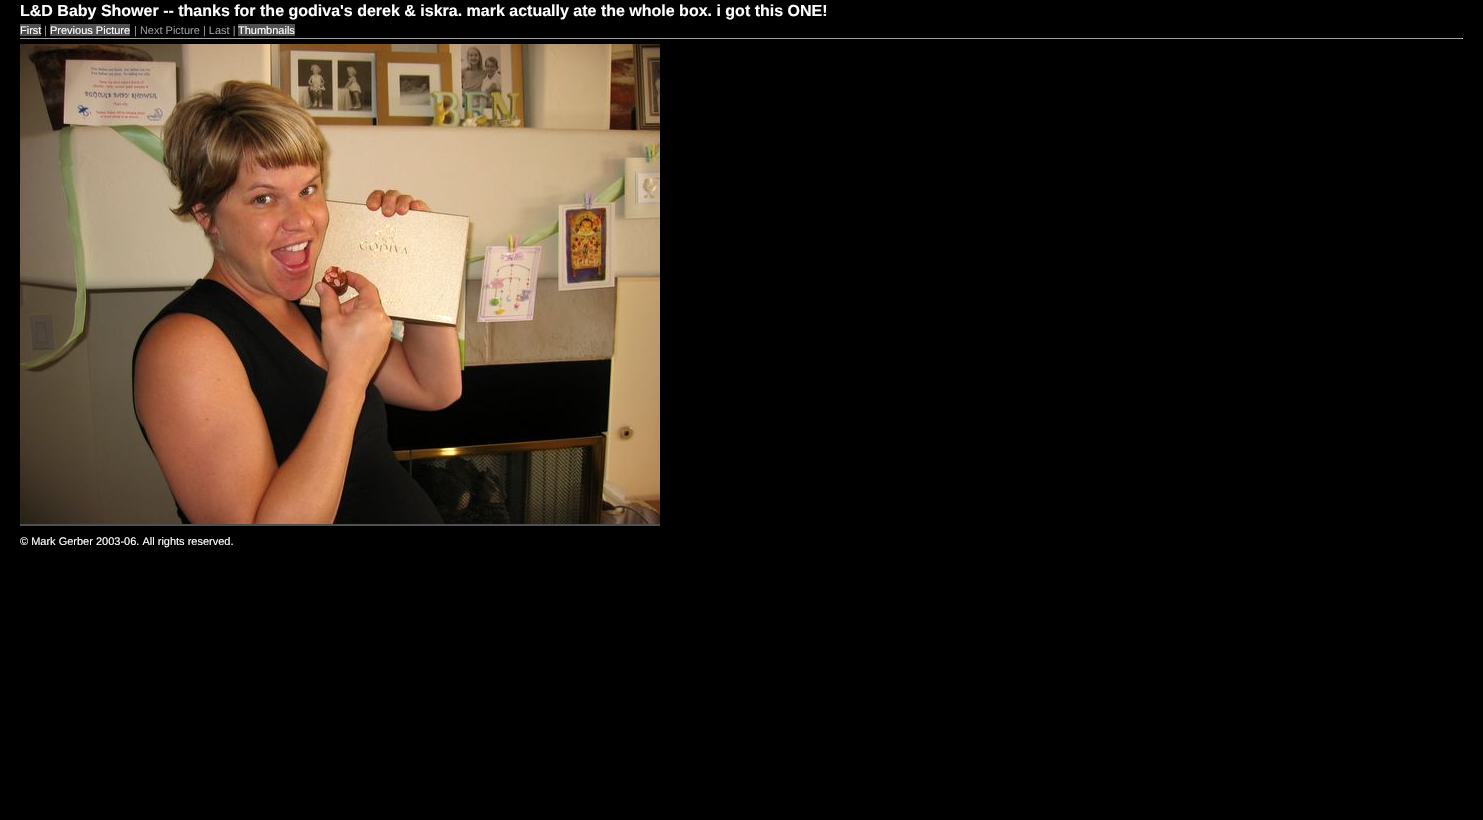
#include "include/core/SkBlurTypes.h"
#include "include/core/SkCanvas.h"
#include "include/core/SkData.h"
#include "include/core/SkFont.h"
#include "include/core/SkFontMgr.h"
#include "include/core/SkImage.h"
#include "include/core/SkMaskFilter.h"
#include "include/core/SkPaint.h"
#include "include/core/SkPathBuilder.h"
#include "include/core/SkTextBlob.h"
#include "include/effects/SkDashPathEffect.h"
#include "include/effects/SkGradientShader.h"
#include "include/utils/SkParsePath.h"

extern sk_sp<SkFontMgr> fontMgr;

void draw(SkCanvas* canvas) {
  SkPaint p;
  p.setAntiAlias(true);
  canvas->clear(SK_ColorBLACK);
  p.setColor(SkColorSetRGB(80, 80, 80));
  canvas->drawRect(SkRect::MakeLTRB(20, 24, 41, 36), p);
  canvas->drawRect(SkRect::MakeLTRB(50, 24, 130, 36), p);
  canvas->drawRect(SkRect::MakeLTRB(238, 24, 295, 36), p);
  p.setColor(SkColorSetRGB(159, 159, 159));
  canvas->drawRect(SkRect::MakeLTRB(20, 38, 1463, 39), p);
  p.setColor(SkColorSetRGB(238, 238, 238));
  canvas->drawRect(SkRect::MakeLTRB(1462, 38, 1463, 39), p);
  canvas->drawImageRect(SkImages::DeferredFromEncodedData(SkData::MakeFromFileName("images/1.png")), SkRect::MakeLTRB(20, 44, 660, 524), SkSamplingOptions());
  p.setColor(SkColorSetRGB(80, 80, 80));
  canvas->drawRect(SkRect::MakeLTRB(20, 524, 660, 526), p);
  SkFont font1(fontMgr->matchFamilyStyle("Liberation Sans", SkFontStyle::Bold()), 16);
  font1.setSubpixel(true);
  p.setColor(SK_ColorWHITE);
  canvas->drawString("L&D Baby Shower -- thanks for the godiva's derek & iskra. mark actually ate the whole box. i got this ONE!", 20, 16, font1, p);
  SkFont font2(fontMgr->matchFamilyStyle("Liberation Sans", SkFontStyle::Normal()), 11);
  font2.setSubpixel(true);
  canvas->drawString("First", 20, 34, font2, p);
  p.setColor(SkColorSetRGB(153, 153, 153));
  canvas->drawString("|", 44, 34, font2, p);
  p.setColor(SK_ColorWHITE);
  canvas->drawString("Previous Picture", 50, 34, font2, p);
  p.setColor(SkColorSetRGB(153, 153, 153));
  canvas->drawString("| Next Picture | Last |", 134, 34, font2, p);
  p.setColor(SK_ColorWHITE);
  canvas->drawString("Thumbnails", 238, 34, font2, p);
  canvas->drawString("© Mark Gerber 2003-06. All rights reserved.", 20, 545, font2, p);
}
